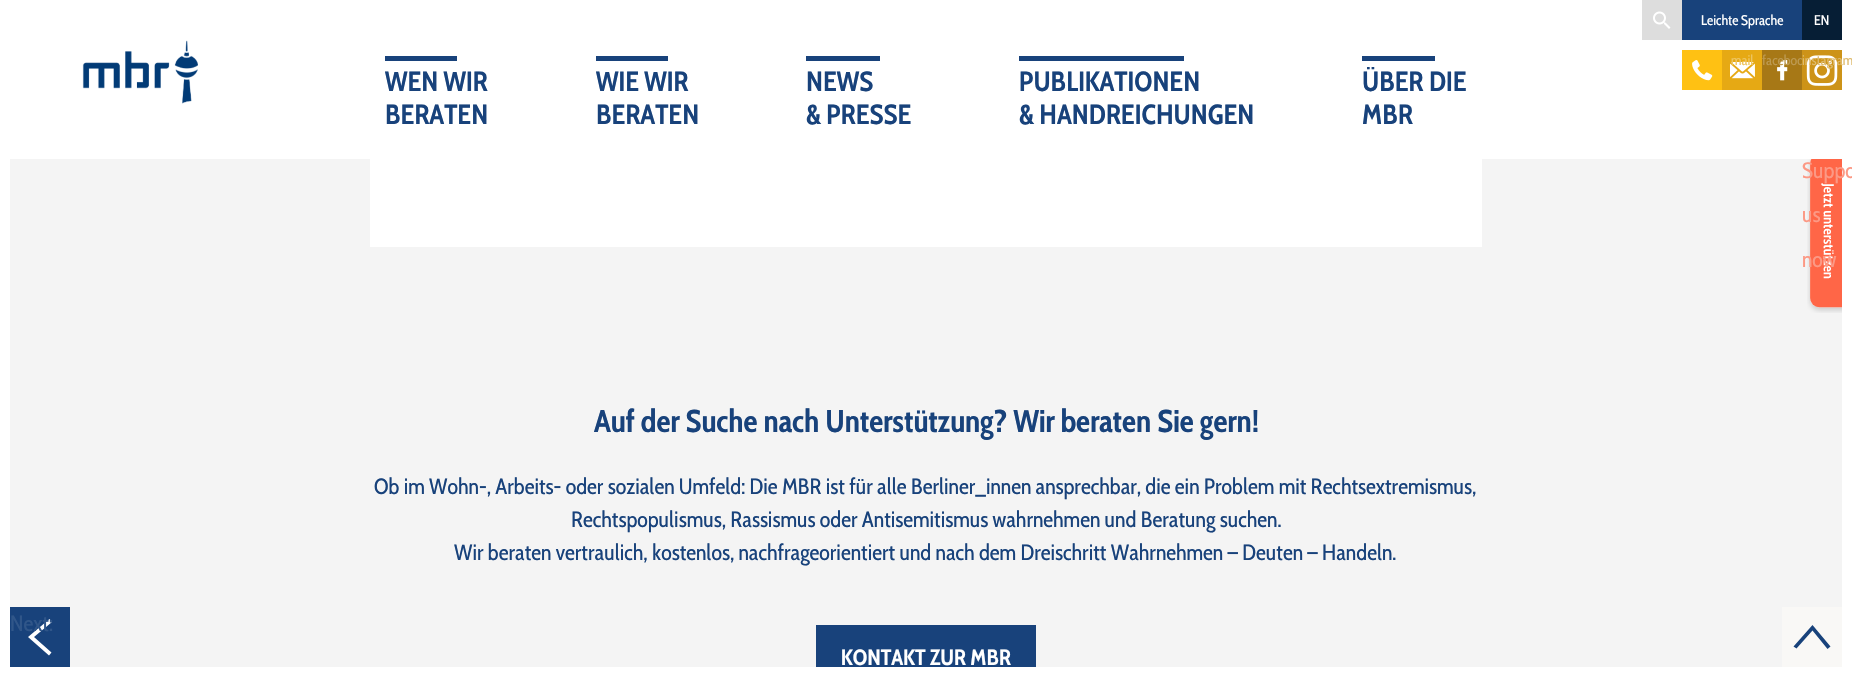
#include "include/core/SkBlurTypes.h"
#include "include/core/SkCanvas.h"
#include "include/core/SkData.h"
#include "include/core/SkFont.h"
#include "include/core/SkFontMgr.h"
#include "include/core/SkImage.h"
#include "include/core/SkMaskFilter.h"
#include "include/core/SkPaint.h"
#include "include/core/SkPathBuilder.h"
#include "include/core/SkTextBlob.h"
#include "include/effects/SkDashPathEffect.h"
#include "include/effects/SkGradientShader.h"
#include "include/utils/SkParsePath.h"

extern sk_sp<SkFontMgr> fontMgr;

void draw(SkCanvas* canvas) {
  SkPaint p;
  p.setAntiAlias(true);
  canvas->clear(SkColorSetRGB(244, 244, 244));
  p.setColor(SK_ColorWHITE);
  canvas->drawRect(SkRect::MakeLTRB(0, 159, 10, 667), p);
  canvas->drawRect(SkRect::MakeLTRB(0, 0, 1852, 159), p);
  canvas->drawImageRect(SkImages::DeferredFromEncodedData(SkData::MakeFromFileName("images/1.png")), SkRect::MakeLTRB(82, 40, 198, 104), SkSamplingOptions());
  p.setColor(SkColorSetRGB(24, 66, 123));
  canvas->drawRect(SkRect::MakeLTRB(385, 56, 457, 61), p);
  canvas->drawRect(SkRect::MakeLTRB(596, 56, 668, 61), p);
  canvas->drawRect(SkRect::MakeLTRB(806, 56, 880, 61), p);
  canvas->drawRect(SkRect::MakeLTRB(1019, 56, 1184, 61), p);
  canvas->drawRect(SkRect::MakeLTRB(1362, 56, 1435, 61), p);
  p.setColor(SkColorSetRGB(221, 221, 221));
  canvas->drawRect(SkRect::MakeLTRB(1642, 0, 1682, 40), p);
  canvas->drawImageRect(SkImages::DeferredFromEncodedData(SkData::MakeFromFileName("images/2.png")), SkRect::MakeLTRB(1653, 11, 1671, 29), SkSamplingOptions());
  p.setColor(SkColorSetRGB(24, 66, 123));
  canvas->drawRect(SkRect::MakeLTRB(1682, 0, 1802, 40), p);
  p.setColor(SkColorSetRGB(6, 30, 53));
  canvas->drawRect(SkRect::MakeLTRB(1802, 0, 1842, 40), p);
  canvas->drawImageRect(SkImages::DeferredFromEncodedData(SkData::MakeFromFileName("images/3.png")), SkRect::MakeLTRB(1682, 50, 1722, 90), SkSamplingOptions());
  canvas->drawImageRect(SkImages::DeferredFromEncodedData(SkData::MakeFromFileName("images/4.png")), SkRect::MakeLTRB(1722, 50, 1762, 90), SkSamplingOptions());
  canvas->drawImageRect(SkImages::DeferredFromEncodedData(SkData::MakeFromFileName("images/5.png")), SkRect::MakeLTRB(1762, 50, 1802, 90), SkSamplingOptions());
  p.setColor(SK_ColorWHITE);
  canvas->drawRect(SkRect::MakeLTRB(370, 159, 1482, 247), p);
  p.setColor(SkColorSetRGB(24, 66, 123));
  canvas->drawRect(SkRect::MakeLTRB(10, 607, 70, 667), p);
  p.setColor(SK_ColorWHITE);
  canvas->drawPath(SkPathBuilder().moveTo(28, 637).lineTo(49, 655.5f).lineTo(51.5f, 652.5f).lineTo(34, 637).lineTo(52, 622).lineTo(49.5f, 619).lineTo(28, 637).detach(), p);
  p.setColor(SkColorSetRGB(24, 66, 123));
  canvas->drawRect(SkRect::MakeLTRB(816, 625, 1036, 667), p);
  p.setColor(SkColorSetRGB(249, 248, 246));
  canvas->drawRect(SkRect::MakeLTRB(1782, 607, 1842, 667), p);
  p.setColor(SkColorSetRGB(24, 66, 123));
  canvas->drawPath(SkPathBuilder().moveTo(1812.5f, 625).lineTo(1793.5f, 646.5f).lineTo(1796.5f, 648.5f).lineTo(1812.5f, 630.5f).lineTo(1827.5f, 649).lineTo(1830.5f, 646.5f).lineTo(1812.5f, 625).detach(), p);
  p.setColor(SK_ColorWHITE);
  canvas->drawRect(SkRect::MakeLTRB(1842, 159, 1852, 667), p);
  canvas->drawImageRect(SkImages::DeferredFromEncodedData(SkData::MakeFromFileName("images/7.png")), SkRect::MakeLTRB(1807, 159, 1842, 313), SkSamplingOptions());
  canvas->drawRect(SkRect::MakeLTRB(0, 667, 1852, 677), p);
  SkFont font1(fontMgr->matchFamilyStyle("Cabin Condensed", SkFontStyle::Bold()), 27.75f);
  font1.setSubpixel(true);
  p.setColor(SkColorSetRGB(24, 66, 123));
  canvas->drawString("WEN WIR", 385, 91, font1, p);
  canvas->drawString("BERATEN", 385, 124, font1, p);
  canvas->drawString("WIE WIR", 596, 91, font1, p);
  canvas->drawString("BERATEN", 596, 124, font1, p);
  canvas->drawString("NEWS", 806, 91, font1, p);
  canvas->drawString("& PRESSE", 806, 124, font1, p);
  canvas->drawString("PUBLIKATIONEN", 1019, 91, font1, p);
  canvas->drawString("& HANDREICHUNGEN", 1019, 124, font1, p);
  canvas->drawString("ÜBER DIE", 1362, 91, font1, p);
  canvas->drawString("MBR", 1362, 124, font1, p);
  SkFont font2(fontMgr->matchFamilyStyle("Cabin Condensed", SkFontStyle::Normal()), 14);
  font2.setSubpixel(true);
  p.setColor(SK_ColorWHITE);
  canvas->drawString("Leichte Sprache", 1701, 25, font2, p);
  canvas->drawString("EN", 1814, 25, font2, p);
  p.setColor(SkColorSetRGB(238, 197, 96));
  canvas->drawString("mail", 1731, 65, font2, p);
  p.setColor(SkColorSetRGB(189, 154, 81));
  canvas->drawString("faceboo", 1762, 65, font2, p);
  canvas->drawImageRect(SkImages::DeferredFromEncodedData(SkData::MakeFromFileName("images/6.png")), SkRect::MakeLTRB(1802, 50, 1842, 90), SkSamplingOptions());
  p.setColor(SkColorSetRGB(223, 187, 109));
  canvas->drawString("instagram", 1802, 65, font2, p);
  SkFont font3(fontMgr->matchFamilyStyle("Cabin Condensed", SkFontStyle::Normal()), 22.2f);
  font3.setSubpixel(true);
  p.setColor(SkColorSetRGB(48, 86, 137));
  canvas->drawString("Next:", 10, 631, font3, p);
  SkFont font4(fontMgr->matchFamilyStyle("Cabin Condensed", SkFontStyle::Bold()), 31.5f);
  font4.setSubpixel(true);
  p.setColor(SkColorSetRGB(24, 66, 123));
  canvas->drawString("Auf der Suche nach Unterstützung? Wir beraten Sie gern!", 594, 432, font4, p);
  canvas->drawString("Ob im Wohn-, Arbeits- oder sozialen Umfeld: Die MBR ist für alle Berliner_innen ansprechbar, die ein Problem mit Rechtsextremismus,", 374, 494, font3, p);
  canvas->drawString("Rechtspopulismus, Rassismus oder Antisemitismus wahrnehmen und Beratung suchen.", 571, 527, font3, p);
  canvas->drawString("Wir beraten vertraulich, kostenlos, nachfrageorientiert und nach dem Dreischritt Wahrnehmen – Deuten – Handeln.", 454, 560, font3, p);
  SkFont font5(fontMgr->matchFamilyStyle("Cabin Condensed", SkFontStyle::Bold()), 22.2f);
  font5.setSubpixel(true);
  p.setColor(SK_ColorWHITE);
  canvas->drawString("KONTAKT ZUR MBR", 841, 665, font5, p);
  p.setColor(SkColorSetRGB(252, 153, 133));
  canvas->drawString("Suppo", 1802, 178, font3, p);
  canvas->drawString("us", 1802, 222, font3, p);
  canvas->drawString("now", 1802, 267, font3, p);
}
